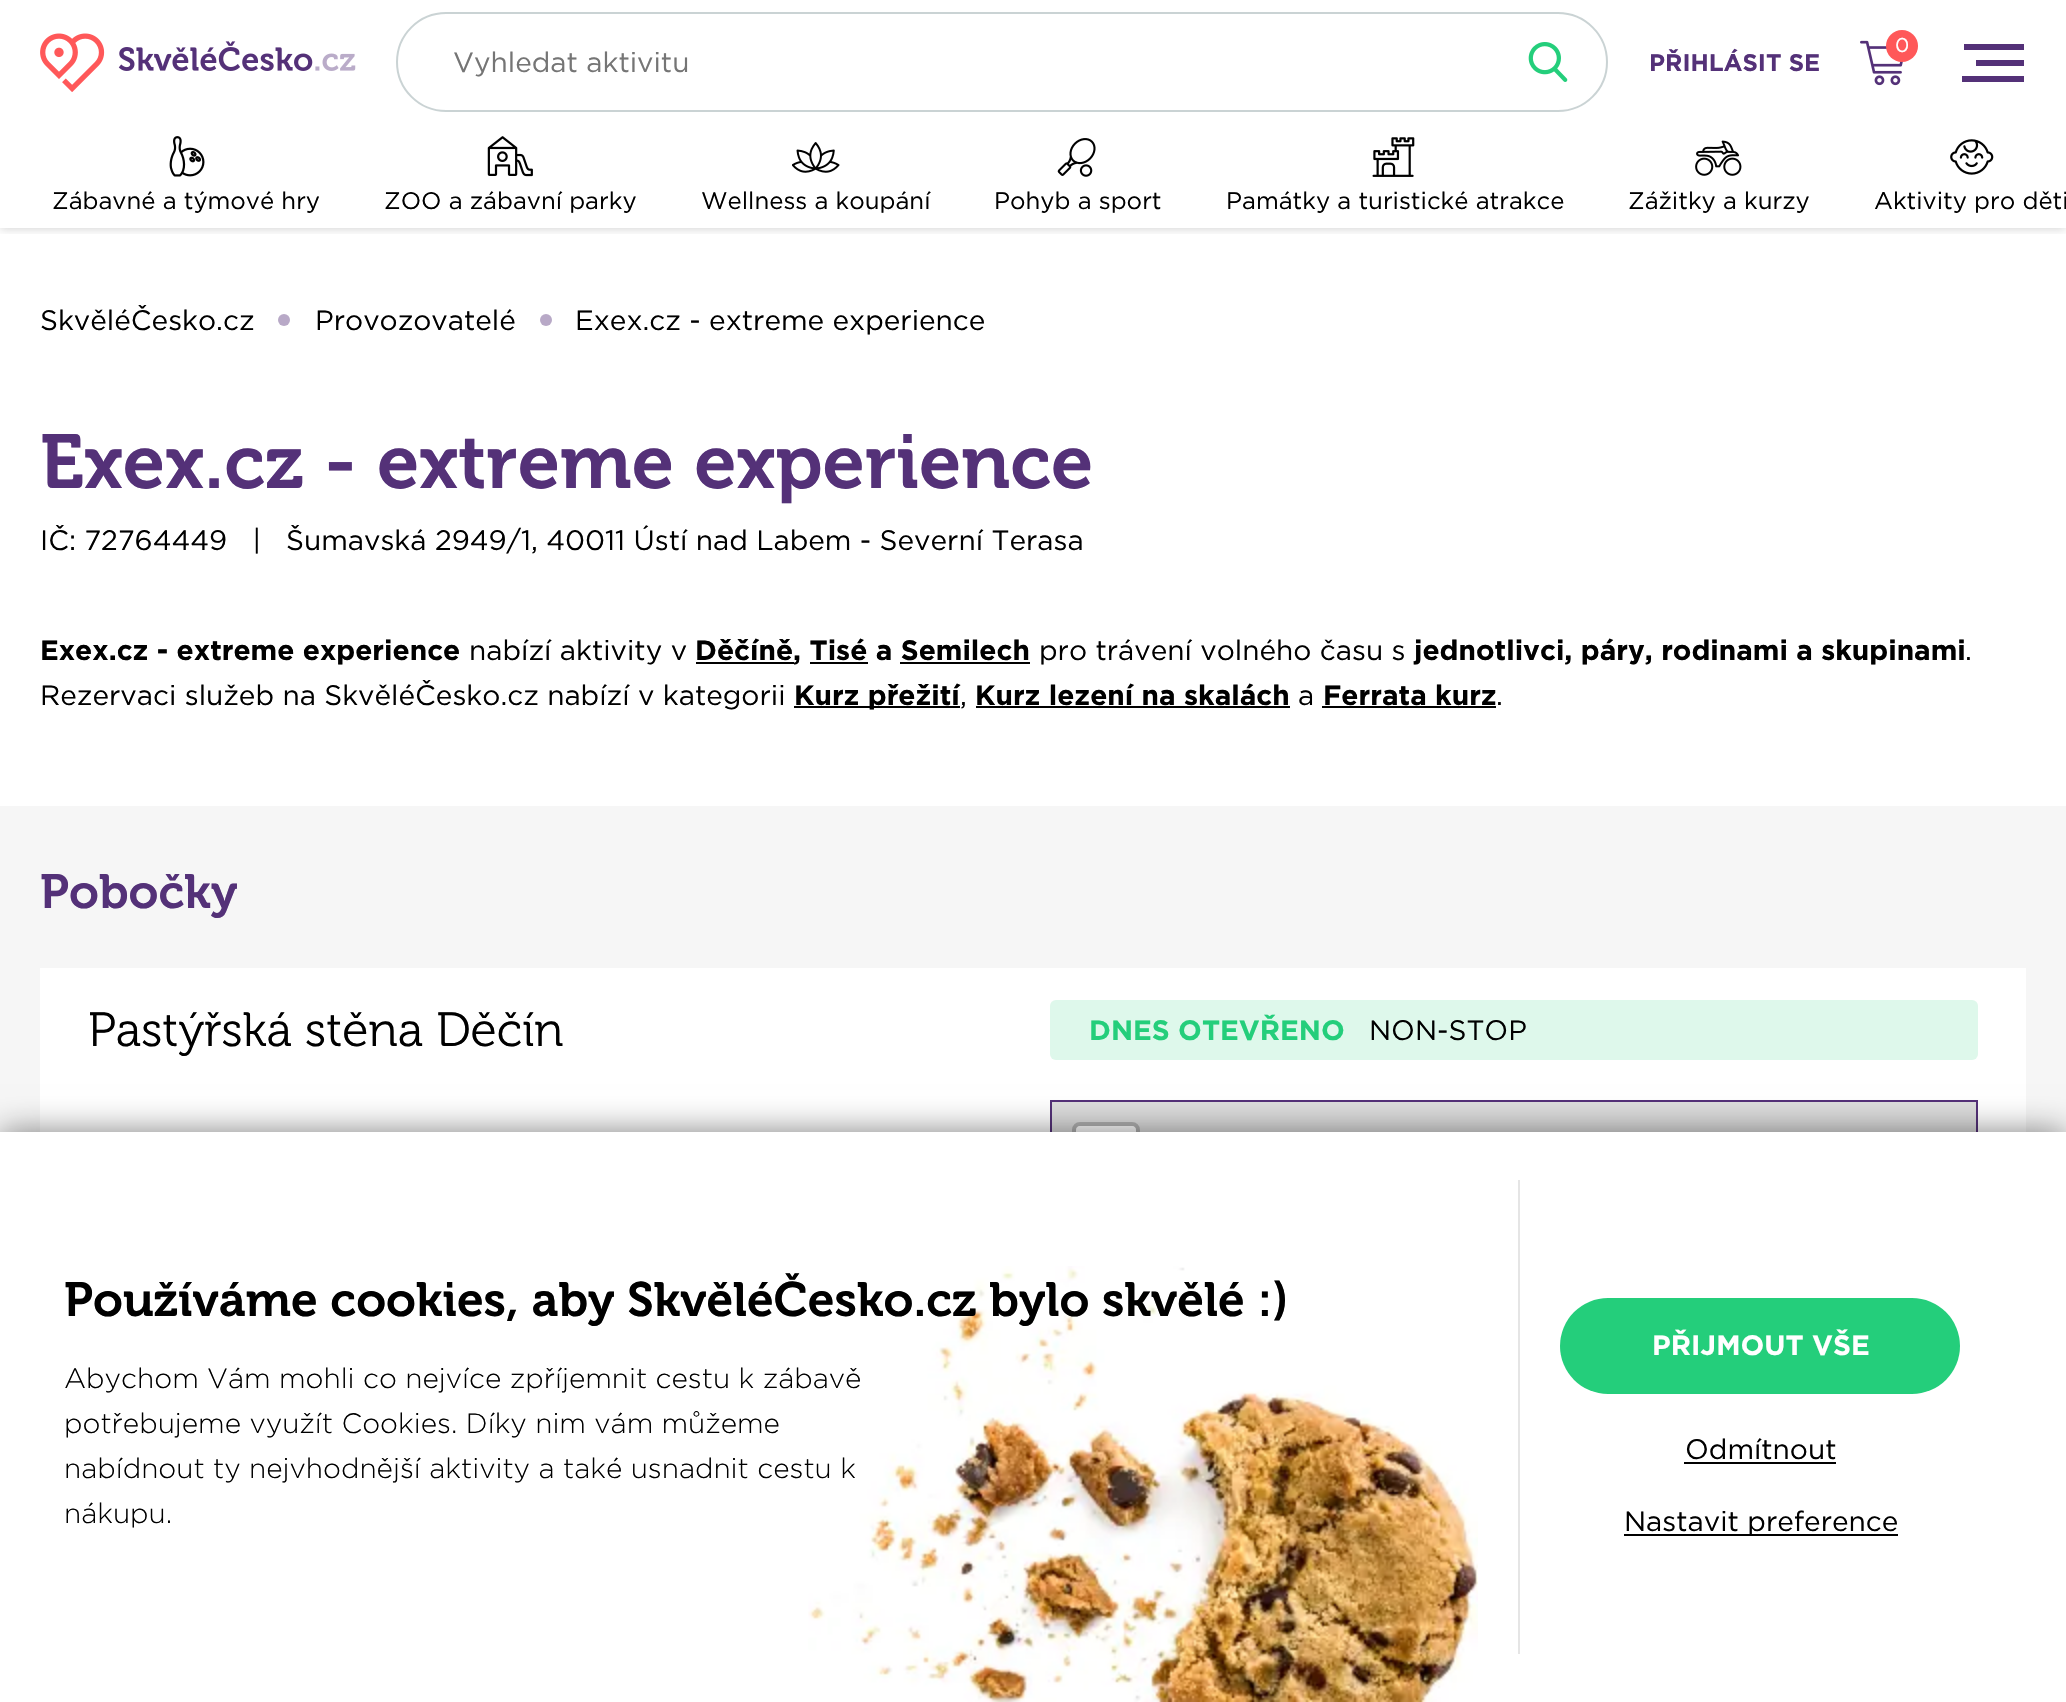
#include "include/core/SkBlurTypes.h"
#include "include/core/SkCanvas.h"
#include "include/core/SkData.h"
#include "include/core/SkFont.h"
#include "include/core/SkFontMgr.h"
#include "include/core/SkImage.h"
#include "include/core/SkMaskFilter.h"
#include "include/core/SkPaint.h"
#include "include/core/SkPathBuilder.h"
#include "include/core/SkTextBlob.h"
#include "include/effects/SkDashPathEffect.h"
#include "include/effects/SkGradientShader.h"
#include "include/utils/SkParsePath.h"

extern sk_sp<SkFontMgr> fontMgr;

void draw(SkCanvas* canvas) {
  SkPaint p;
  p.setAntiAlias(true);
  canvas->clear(SK_ColorWHITE);
  canvas->save();
  canvas->clipRect(SkRect::MakeLTRB(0, 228, 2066, 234));
  p.setColor(SkColorSetARGB(51, 0, 0, 0));
  p.setMaskFilter(SkMaskFilter::MakeBlur(kNormal_SkBlurStyle, 5));
  canvas->drawRect(SkRect::MakeLTRB(0, 0, 2066, 228), p);
  p.setMaskFilter(nullptr);
  canvas->restore();
  canvas->drawImageRect(SkImages::DeferredFromEncodedData(SkData::MakeFromFileName("images/1.png")), SkRect::MakeLTRB(40, 33, 356, 92), SkSamplingOptions());
  p.setStyle(SkPaint::kStroke_Style);
  p.setStrokeWidth(2);
  p.setColor(SkColorSetRGB(202, 211, 212));
  canvas->drawRoundRect(SkRect::MakeLTRB(397, 13, 1607, 111), 49, 49, p);
  canvas->drawImageRect(SkImages::DeferredFromEncodedData(SkData::MakeFromFileName("images/2.png")), SkRect::MakeLTRB(1528, 42, 1568, 82), SkSamplingOptions());
  canvas->drawImageRect(SkImages::DeferredFromEncodedData(SkData::MakeFromFileName("images/3.png")), SkRect::MakeLTRB(1860, 40, 1903, 86), SkSamplingOptions());
  p.setStyle(SkPaint::kFill_Style);
  p.setColor(SkColorSetRGB(255, 88, 89));
  canvas->drawCircle(1902, 46, 16, p);
  p.setColor(SkColorSetRGB(84, 49, 120));
  canvas->drawPath(SkPathBuilder().moveTo(1964, 44).lineTo(2024, 44).lineTo(2024, 50).lineTo(1964, 50).close().moveTo(1976, 60).lineTo(2024, 60).lineTo(2024, 66).lineTo(1976, 66).close().moveTo(1962, 76).lineTo(2024, 76).lineTo(2024, 82).lineTo(1962, 82).close().detach(), p);
  canvas->drawImageRect(SkImages::DeferredFromEncodedData(SkData::MakeFromFileName("images/4.png")), SkRect::MakeLTRB(169, 136, 205, 177), SkSamplingOptions());
  canvas->drawImageRect(SkImages::DeferredFromEncodedData(SkData::MakeFromFileName("images/5.png")), SkRect::MakeLTRB(487, 136, 533, 177), SkSamplingOptions());
  canvas->drawImageRect(SkImages::DeferredFromEncodedData(SkData::MakeFromFileName("images/6.png")), SkRect::MakeLTRB(792, 142, 840, 173), SkSamplingOptions());
  canvas->drawImageRect(SkImages::DeferredFromEncodedData(SkData::MakeFromFileName("images/7.png")), SkRect::MakeLTRB(1057, 138, 1096, 177), SkSamplingOptions());
  canvas->drawImageRect(SkImages::DeferredFromEncodedData(SkData::MakeFromFileName("images/8.png")), SkRect::MakeLTRB(1372, 137, 1415, 177), SkSamplingOptions());
  canvas->drawImageRect(SkImages::DeferredFromEncodedData(SkData::MakeFromFileName("images/9.png")), SkRect::MakeLTRB(1695, 140, 1742, 176), SkSamplingOptions());
  canvas->drawImageRect(SkImages::DeferredFromEncodedData(SkData::MakeFromFileName("images/10.png")), SkRect::MakeLTRB(1950, 139, 1994, 175), SkSamplingOptions());
  p.setColor(SkColorSetRGB(184, 169, 199));
  canvas->drawCircle(284, 320, 6, p);
  canvas->drawCircle(546, 320, 6, p);
  p.setColor(SK_ColorBLACK);
  canvas->drawRect(SkRect::MakeLTRB(696, 662, 794, 664), p);
  canvas->drawRect(SkRect::MakeLTRB(810, 662, 868, 664), p);
  canvas->drawRect(SkRect::MakeLTRB(900, 662, 1030, 664), p);
  canvas->drawRect(SkRect::MakeLTRB(794, 706, 960, 708), p);
  canvas->drawRect(SkRect::MakeLTRB(976, 706, 1290, 708), p);
  canvas->drawRect(SkRect::MakeLTRB(1322, 706, 1496, 708), p);
  p.setColor(SkColorSetRGB(246, 246, 246));
  canvas->drawRect(SkRect::MakeLTRB(0, 806, 2066, 1132), p);
  p.setColor(SK_ColorWHITE);
  canvas->drawRect(SkRect::MakeLTRB(40, 968, 2026, 1132), p);
  p.setColor(SkColorSetRGB(222, 248, 235));
  canvas->drawRoundRect(SkRect::MakeLTRB(1050, 1000, 1978, 1060), 6, 6, p);
  p.setColor(SkColorSetRGB(221, 221, 221));
  canvas->drawRect(SkRect::MakeLTRB(1052, 1102, 1976, 1132), p);
  p.setStyle(SkPaint::kStroke_Style);
  p.setColor(SkColorSetRGB(84, 49, 120));
  canvas->drawRect(SkRect::MakeLTRB(1051, 1101, 1977, 1479), p);
  p.setStrokeWidth(4);
  p.setColor(SkColorSetRGB(177, 177, 177));
  canvas->drawRoundRect(SkRect::MakeLTRB(1074, 1124, 1138, 1248), 6, 6, p);
  p.setStyle(SkPaint::kFill_Style);
  p.setColor(SK_ColorWHITE);
  canvas->drawPath(SkPathBuilder().moveTo(1080, 1126).lineTo(1132, 1126).cubicTo(1134, 1126, 1136, 1128, 1136, 1130).lineTo(1136, 1186).lineTo(1076, 1186).lineTo(1076, 1130).cubicTo(1076, 1128, 1078, 1126, 1080, 1126).close().detach(), p);
  p.setColor(SkColorSetARGB(128, 0, 0, 0));
  p.setMaskFilter(SkMaskFilter::MakeBlur(kNormal_SkBlurStyle, 16));
  canvas->drawRect(SkRect::MakeLTRB(0, 1132, 2066, 1702), p);
  p.setMaskFilter(nullptr);
  p.setColor(SK_ColorWHITE);
  canvas->drawRect(SkRect::MakeLTRB(0, 1132, 2066, 1702), p);
  canvas->drawImageRect(SkImages::DeferredFromEncodedData(SkData::MakeFromFileName("images/11.png")), SkRect::MakeLTRB(808, 1266, 1478, 1702), SkSamplingOptions());
  p.setColor(SkColorSetRGB(229, 229, 229));
  canvas->drawRect(SkRect::MakeLTRB(1518, 1180, 1520, 1654), p);
  p.setColor(SkColorSetRGB(36, 206, 123));
  canvas->drawRoundRect(SkRect::MakeLTRB(1560, 1298, 1960, 1394), 48, 48, p);
  p.setColor(SK_ColorBLACK);
  canvas->drawRect(SkRect::MakeLTRB(1684, 1462, 1836, 1464), p);
  canvas->drawRect(SkRect::MakeLTRB(1624, 1534, 1898, 1536), p);
  SkFont font1(fontMgr->matchFamilyStyle("Gotham", SkFontStyle::Normal()), 28);
  font1.setSubpixel(true);
  p.setColor(SkColorSetRGB(117, 117, 117));
  canvas->drawString("Vyhledat aktivitu", 453, 72, font1, p);
  SkFont font2(fontMgr->matchFamilyStyle("Gotham", SkFontStyle::Bold()), 24);
  font2.setSubpixel(true);
  p.setColor(SkColorSetRGB(84, 49, 120));
  canvas->drawString("PŘIHLÁSIT SE", 1649, 71, font2, p);
  SkFont font3(fontMgr->matchFamilyStyle("Gotham", SkFontStyle::Normal()), 20);
  font3.setSubpixel(true);
  p.setColor(SK_ColorWHITE);
  canvas->drawString("0", 1895, 52, font3, p);
  SkFont font4(fontMgr->matchFamilyStyle("Gotham", SkFontStyle::Normal()), 24);
  font4.setSubpixel(true);
  p.setColor(SK_ColorBLACK);
  canvas->drawString("Zábavné a týmové hry", 52, 209, font4, p);
  canvas->drawString("ZOO a zábavní parky", 384, 209, font4, p);
  canvas->drawString("Wellness a koupání", 701, 209, font4, p);
  canvas->drawString("Pohyb a sport", 994, 209, font4, p);
  canvas->drawString("Památky a turistické atrakce", 1226, 209, font4, p);
  canvas->drawString("Zážitky a kurzy", 1628, 209, font4, p);
  canvas->drawString("Aktivity pro děti", 1874, 209, font4, p);
  canvas->drawString("SkvěléČesko.cz", 40, 330, font1, p);
  canvas->drawString("Provozovatelé", 315, 330, font1, p);
  canvas->drawString("Exex.cz - extreme experience", 575, 330, font1, p);
  SkFont font5(fontMgr->matchFamilyStyle("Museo", SkFontStyle(600, SkFontStyle::kNormal_Width, SkFontStyle::kUpright_Slant)), 76);
  font5.setSubpixel(true);
  p.setColor(SkColorSetRGB(84, 49, 120));
  canvas->drawString("Exex.cz - extreme experience", 40, 488, font5, p);
  p.setColor(SK_ColorBLACK);
  canvas->drawString("IČ: 72764449   |   Šumavská 2949/1, 40011 Ústí nad Labem - Severní Terasa", 40, 550, font1, p);
  SkFont font6(fontMgr->matchFamilyStyle("Gotham", SkFontStyle::Bold()), 28);
  font6.setSubpixel(true);
  canvas->drawString("Exex.cz - extreme experience", 40, 660, font6, p);
  canvas->drawString("nabízí aktivity v", 469, 660, font1, p);
  canvas->drawString("Děčíně, Tisé a Semilech", 695, 660, font6, p);
  canvas->drawString("pro trávení volného času s", 1039, 660, font1, p);
  canvas->drawString("jednotlivci, páry, rodinami a skupinami", 1414, 660, font6, p);
  canvas->drawString(".", 1965, 660, font1, p);
  canvas->drawString("Rezervaci služeb na SkvěléČesko.cz nabízí v kategorii", 40, 705, font1, p);
  canvas->drawString("Kurz přežití", 794, 705, font6, p);
  canvas->drawString(",", 960, 705, font1, p);
  canvas->drawString("Kurz lezení na skalách", 975, 705, font6, p);
  canvas->drawString("a", 1298, 705, font1, p);
  canvas->drawString("Ferrata kurz", 1323, 705, font6, p);
  canvas->drawString(".", 1496, 705, font1, p);
  SkFont font7(fontMgr->matchFamilyStyle("Museo", SkFontStyle(600, SkFontStyle::kNormal_Width, SkFontStyle::kUpright_Slant)), 48);
  font7.setSubpixel(true);
  p.setColor(SkColorSetRGB(84, 49, 120));
  canvas->drawString("Pobočky", 40, 908, font7, p);
  SkFont font8(fontMgr->matchFamilyStyle("Museo", SkFontStyle(300, SkFontStyle::kNormal_Width, SkFontStyle::kUpright_Slant)), 48);
  font8.setSubpixel(true);
  p.setColor(SK_ColorBLACK);
  canvas->drawString("Pastýřská stěna Děčín", 88, 1046, font8, p);
  p.setColor(SkColorSetRGB(36, 206, 123));
  canvas->drawString("DNES OTEVŘENO", 1089, 1040, font6, p);
  p.setColor(SK_ColorBLACK);
  canvas->drawString("NON-STOP", 1369, 1040, font1, p);
  canvas->drawString("Používáme cookies, aby SkvěléČesko.cz bylo skvělé :)", 64, 1316, font7, p);
  SkFont font9(fontMgr->matchFamilyStyle("Gotham", SkFontStyle(300, SkFontStyle::kNormal_Width, SkFontStyle::kUpright_Slant)), 28);
  font9.setSubpixel(true);
  canvas->drawString("Abychom Vám mohli co nejvíce zpříjemnit cestu k zábavě", 64, 1388, font9, p);
  canvas->drawString("potřebujeme využít Cookies. Díky nim vám můžeme", 64, 1433, font9, p);
  canvas->drawString("nabídnout ty nejvhodnější aktivity a také usnadnit cestu k", 64, 1478, font9, p);
  canvas->drawString("nákupu.", 64, 1523, font9, p);
  p.setColor(SK_ColorWHITE);
  canvas->drawString("PŘIJMOUT VŠE", 1652, 1355, font6, p);
  p.setColor(SK_ColorBLACK);
  canvas->drawString("Odmítnout", 1685, 1459, font1, p);
  canvas->drawString("Nastavit preference", 1624, 1531, font1, p);
}
